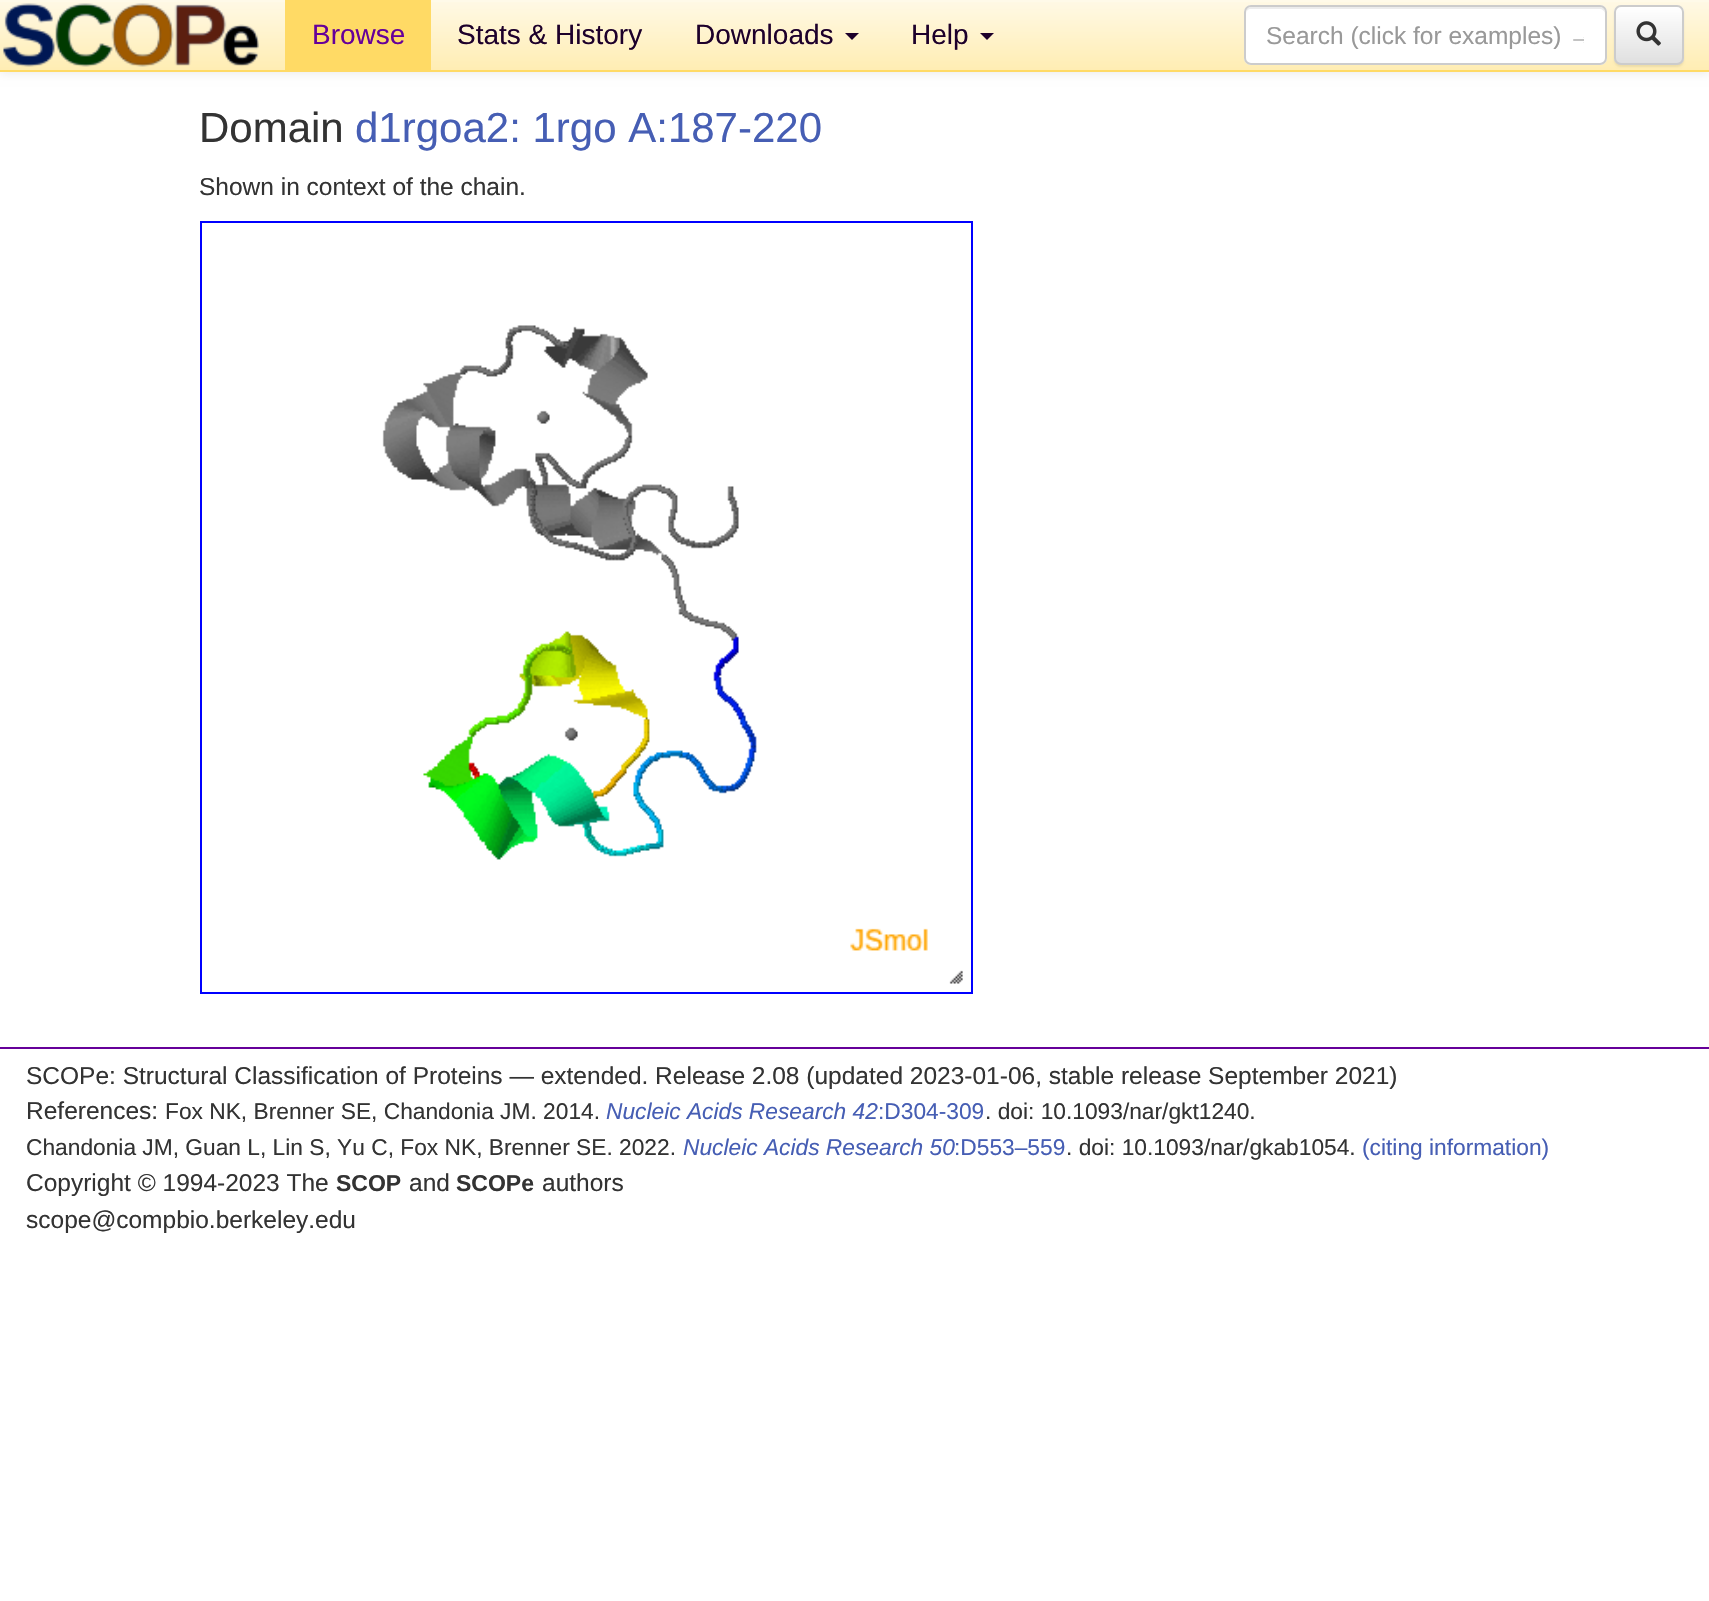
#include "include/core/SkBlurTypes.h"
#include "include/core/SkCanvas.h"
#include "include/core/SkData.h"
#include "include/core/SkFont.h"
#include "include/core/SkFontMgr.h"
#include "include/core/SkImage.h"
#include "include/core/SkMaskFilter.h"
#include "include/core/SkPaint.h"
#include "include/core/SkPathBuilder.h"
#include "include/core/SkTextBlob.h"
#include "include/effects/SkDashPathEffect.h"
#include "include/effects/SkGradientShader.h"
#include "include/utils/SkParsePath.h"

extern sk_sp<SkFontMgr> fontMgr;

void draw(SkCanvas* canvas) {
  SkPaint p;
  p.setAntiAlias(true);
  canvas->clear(SK_ColorWHITE);
  p.setColor(SkColorSetARGB(18, 0, 0, 0));
  p.setMaskFilter(SkMaskFilter::MakeBlur(kNormal_SkBlurStyle, 4.5f));
  canvas->drawRect(SkRect::MakeLTRB(0, 2, 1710, 74), p);
  p.setMaskFilter(nullptr);
  {
    const SkColor colors[] = {SkColorSetRGB(255, 249, 230), SkColorSetRGB(255, 237, 179)};
    const float stops[] = {0, 1};
    const SkPoint ends[] = {{855, 0}, {855, 70}};
    p.setShader(SkGradientShader::MakeLinear(ends, colors, stops, 2, SkTileMode::kClamp));
    p.setAlpha(255);
  }
  canvas->drawRect(SkRect::MakeLTRB(0, 2, 1709, 70), p);
  p.setShader(nullptr);
  p.setColor(SkColorSetRGB(255, 250, 233));
  canvas->drawRect(SkRect::MakeLTRB(0, 0, 1709, 2), p);
  p.setColor(SkColorSetRGB(255, 218, 101));
  canvas->drawRect(SkRect::MakeLTRB(0, 70, 1709, 72), p);
  canvas->drawImageRect(SkImages::DeferredFromEncodedData(SkData::MakeFromFileName("images/1.png")), SkRect::MakeLTRB(3, 3, 259, 67), SkSamplingOptions());
  canvas->drawRect(SkRect::MakeLTRB(285, 0, 431, 70), p);
  p.setColor(SkColorSetRGB(29, 0, 43));
  canvas->drawPath(SkPathBuilder().moveTo(845, 33).lineTo(859, 33).lineTo(852, 40).close().detach(), p);
  canvas->drawPath(SkPathBuilder().moveTo(980, 33).lineTo(994, 33).lineTo(987, 40).close().detach(), p);
  p.setColor(SK_ColorWHITE);
  canvas->drawRoundRect(SkRect::MakeLTRB(1244, 5, 1607, 65), 7, 7, p);
  p.setColor(SkColorSetRGB(236, 236, 236));
  canvas->drawPath(SkPathBuilder().moveTo(1251, 9).lineTo(1600, 9).cubicTo(1602, 9, 1605, 11, 1605, 14).cubicTo(1605, 11, 1604, 7, 1600, 7).lineTo(1251, 7).cubicTo(1247, 7, 1246, 11, 1246, 14).cubicTo(1246, 11, 1248, 9, 1251, 9).close().detach(), p);
  p.setStyle(SkPaint::kStroke_Style);
  p.setStrokeWidth(2);
  p.setColor(SkColorSetRGB(204, 204, 204));
  canvas->drawRoundRect(SkRect::MakeLTRB(1245, 6, 1606, 64), 6, 6, p);
  p.setStyle(SkPaint::kFill_Style);
  p.setColor(SkColorSetARGB(18, 0, 0, 0));
  p.setMaskFilter(SkMaskFilter::MakeBlur(kNormal_SkBlurStyle, 1));
  canvas->drawRoundRect(SkRect::MakeLTRB(1614, 7, 1684, 67), 7, 7, p);
  p.setMaskFilter(nullptr);
  canvas->save();
  canvas->clipPath(SkPathBuilder().moveTo(1621, 5).lineTo(1677, 5).cubicTo(1681, 5, 1684, 8, 1684, 12).lineTo(1684, 58).cubicTo(1684, 62, 1681, 65, 1677, 65).lineTo(1621, 65).cubicTo(1617, 65, 1614, 62, 1614, 58).lineTo(1614, 12).cubicTo(1614, 8, 1617, 5, 1621, 5).close().detach(), true);
  {
    const SkColor colors[] = {SK_ColorWHITE, SkColorSetRGB(224, 224, 224)};
    const float stops[] = {0, 1};
    const SkPoint ends[] = {{1649, 7}, {1649, 63}};
    p.setShader(SkGradientShader::MakeLinear(ends, colors, stops, 2, SkTileMode::kClamp));
    p.setAlpha(255);
  }
  canvas->drawRect(SkRect::MakeLTRB(1614, 7, 1684, 63), p);
  canvas->restore();
  p.setStyle(SkPaint::kStroke_Style);
  p.setShader(nullptr);
  p.setColor(SkColorSetRGB(204, 204, 204));
  canvas->drawRoundRect(SkRect::MakeLTRB(1615, 6, 1683, 64), 6, 6, p);
  canvas->drawImageRect(SkImages::DeferredFromEncodedData(SkData::MakeFromFileName("images/2.png")), SkRect::MakeLTRB(1636, 21, 1661, 46), SkSamplingOptions());
  p.setColor(SkColorSetRGB(0, 0, 255));
  canvas->drawRect(SkRect::MakeLTRB(201, 222, 972, 993), p);
  canvas->drawImageRect(SkImages::DeferredFromEncodedData(SkData::MakeFromFileName("images/3.png")), SkRect::MakeLTRB(382, 325, 928, 951), SkSamplingOptions());
  canvas->drawImageRect(SkImages::DeferredFromEncodedData(SkData::MakeFromFileName("images/4.png")), SkRect::MakeLTRB(949, 970, 963, 984), SkSamplingOptions());
  p.setStyle(SkPaint::kFill_Style);
  p.setColor(SkColorSetRGB(102, 0, 153));
  canvas->drawRect(SkRect::MakeLTRB(0, 1047, 1709, 1049), p);
  SkFont font1(fontMgr->matchFamilyStyle("Liberation Sans", SkFontStyle::Normal()), 28);
  font1.setSubpixel(true);
  canvas->drawString("Browse", 312, 44, font1, p);
  p.setColor(SkColorSetRGB(29, 0, 43));
  canvas->drawString("Stats & History", 457, 44, font1, p);
  canvas->drawString("Downloads", 695, 44, font1, p);
  canvas->drawString("Help", 911, 44, font1, p);
  canvas->save();
  canvas->clipRect(SkRect::MakeLTRB(1267, 21, 1584, 49));
  SkFont font2(fontMgr->matchFamilyStyle("Liberation Sans", SkFontStyle::Normal()), 24.5f);
  font2.setSubpixel(true);
  p.setColor(SkColorSetRGB(153, 153, 153));
  canvas->drawString("Search (click for examples) →", 1266, 44, font2, p);
  canvas->restore();
  SkFont font3(fontMgr->matchFamilyStyle("Liberation Sans", SkFontStyle::Normal()), 42);
  font3.setSubpixel(true);
  p.setColor(SkColorSetRGB(51, 51, 51));
  canvas->drawString("Domain", 199, 142, font3, p);
  p.setColor(SkColorSetRGB(70, 94, 180));
  canvas->drawString("d1rgoa2: 1rgo A:187-220", 355, 142, font3, p);
  p.setColor(SkColorSetRGB(51, 51, 51));
  canvas->drawString("Shown in context of the chain.", 199, 195, font2, p);
  canvas->drawString("SCOPe: Structural Classification of Proteins — extended. Release 2.08 (updated 2023-01-06, stable release September 2021)", 26, 1084, font2, p);
  canvas->drawString("References:", 26, 1119, font2, p);
  SkFont font4(fontMgr->matchFamilyStyle("Liberation Sans", SkFontStyle::Normal()), 22.75f);
  font4.setSubpixel(true);
  canvas->drawString("Fox NK, Brenner SE, Chandonia JM. 2014.", 165, 1119, font4, p);
  SkFont font5(fontMgr->matchFamilyStyle("Liberation Sans", SkFontStyle::Italic()), 22.75f);
  font5.setSubpixel(true);
  p.setColor(SkColorSetRGB(70, 94, 180));
  canvas->drawString("Nucleic Acids Research 42", 606, 1119, font5, p);
  canvas->drawString(":D304-309", 878, 1119, font4, p);
  p.setColor(SkColorSetRGB(51, 51, 51));
  canvas->drawString(". doi: 10.1093/nar/gkt1240.", 985, 1119, font4, p);
  canvas->drawString("Chandonia JM, Guan L, Lin S, Yu C, Fox NK, Brenner SE. 2022.", 26, 1155, font4, p);
  p.setColor(SkColorSetRGB(70, 94, 180));
  canvas->drawString("Nucleic Acids Research 50", 683, 1155, font5, p);
  canvas->drawString(":D553–559", 954, 1155, font4, p);
  p.setColor(SkColorSetRGB(51, 51, 51));
  canvas->drawString(". doi: 10.1093/nar/gkab1054.", 1066, 1155, font4, p);
  p.setColor(SkColorSetRGB(70, 94, 180));
  canvas->drawString("(citing information)", 1362, 1155, font4, p);
  p.setColor(SkColorSetRGB(51, 51, 51));
  canvas->drawString("Copyright © 1994-2023 The", 26, 1191, font2, p);
  SkFont font6(fontMgr->matchFamilyStyle("Liberation Sans", SkFontStyle::Bold()), 23);
  font6.setSubpixel(true);
  canvas->drawString("SCOP", 336, 1191, font6, p);
  canvas->drawString("and", 409, 1191, font2, p);
  canvas->drawString("SCOPe", 456, 1191, font6, p);
  canvas->drawString("authors", 542, 1191, font2, p);
  canvas->drawString("scope@compbio.berkeley.edu", 26, 1228, font2, p);
}
